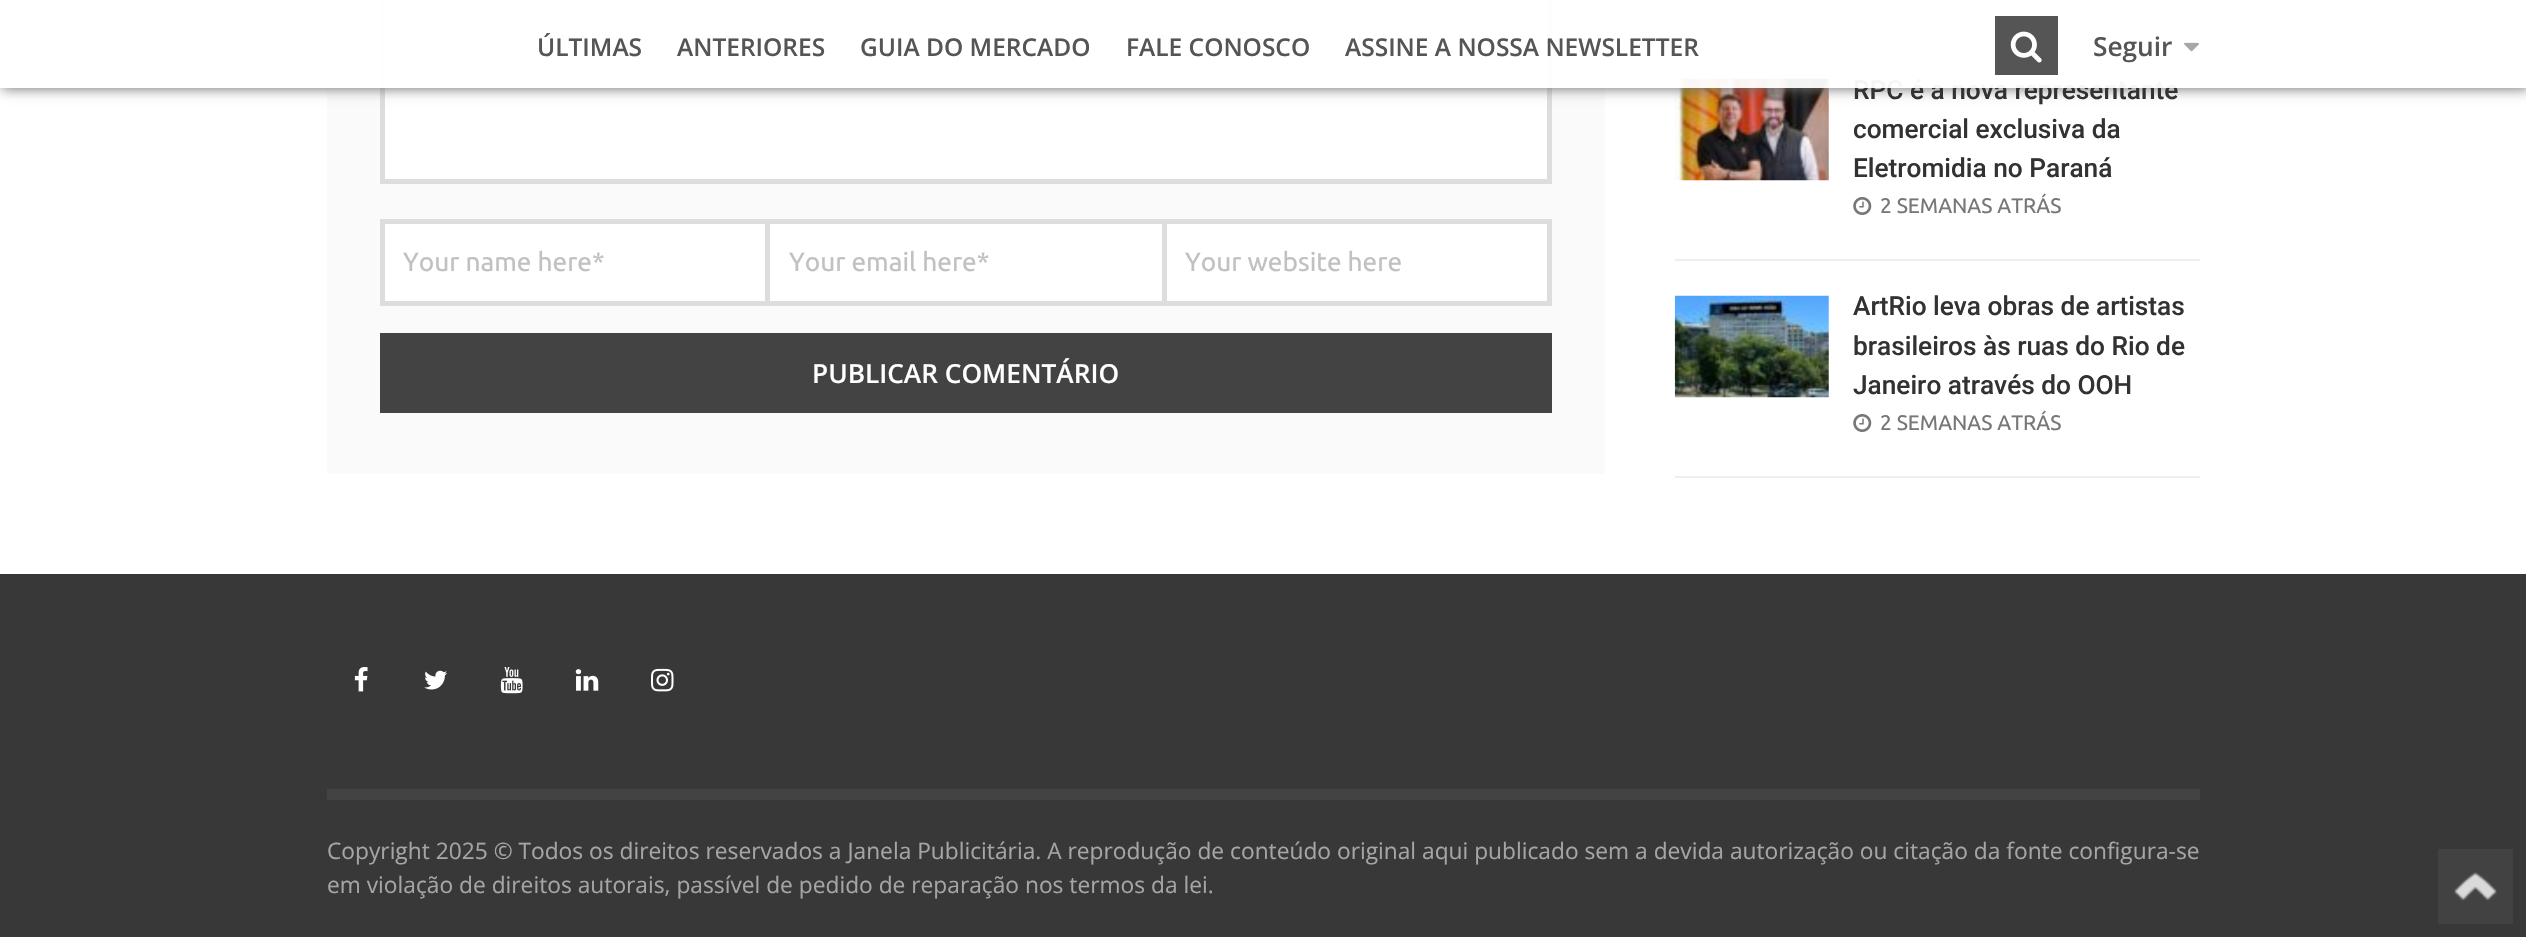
#include "include/core/SkBlurTypes.h"
#include "include/core/SkCanvas.h"
#include "include/core/SkData.h"
#include "include/core/SkFont.h"
#include "include/core/SkFontMgr.h"
#include "include/core/SkImage.h"
#include "include/core/SkMaskFilter.h"
#include "include/core/SkPaint.h"
#include "include/core/SkPathBuilder.h"
#include "include/core/SkTextBlob.h"
#include "include/effects/SkDashPathEffect.h"
#include "include/effects/SkGradientShader.h"
#include "include/utils/SkParsePath.h"

extern sk_sp<SkFontMgr> fontMgr;

void draw(SkCanvas* canvas) {
  SkPaint p;
  p.setAntiAlias(true);
  canvas->clear(SK_ColorWHITE);
  p.setColor(SkColorSetRGB(250, 250, 250));
  canvas->drawRect(SkRect::MakeLTRB(327, 0, 1605, 474), p);
  p.setColor(SK_ColorWHITE);
  canvas->drawRect(SkRect::MakeLTRB(382.5f, -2.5f, 1549.5f, 181.5f), p);
  p.setStyle(SkPaint::kStroke_Style);
  p.setStrokeWidth(5);
  p.setColor(SkColorSetRGB(221, 221, 221));
  canvas->drawRect(SkRect::MakeLTRB(382.5f, -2.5f, 1549.5f, 181.5f), p);
  p.setStyle(SkPaint::kFill_Style);
  p.setColor(SkColorSetRGB(238, 238, 238));
  canvas->drawRect(SkRect::MakeLTRB(1675, 42, 2200, 44), p);
  canvas->drawImageRect(SkImages::DeferredFromEncodedData(SkData::MakeFromFileName("images/3.png")), SkRect::MakeLTRB(1675, 78, 1829, 181), SkSamplingOptions());
  canvas->save();
  canvas->clipPath(SkPathBuilder(SkPathFillType::kEvenOdd).moveTo(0, 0).lineTo(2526, 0).lineTo(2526, 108).lineTo(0, 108).close().moveTo(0, 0).lineTo(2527, 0).lineTo(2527, 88).lineTo(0, 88).close().detach(), true);
  p.setColor(SkColorSetRGB(119, 119, 119));
  p.setMaskFilter(SkMaskFilter::MakeBlur(kNormal_SkBlurStyle, 6));
  canvas->drawRect(SkRect::MakeLTRB(2, 2, 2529, 89), p);
  p.setMaskFilter(nullptr);
  canvas->restore();
  p.setColor(SK_ColorWHITE);
  canvas->drawRect(SkRect::MakeLTRB(382.5f, 221.5f, 767.5f, 303.5f), p);
  p.setStyle(SkPaint::kStroke_Style);
  p.setColor(SkColorSetRGB(221, 221, 221));
  canvas->drawRect(SkRect::MakeLTRB(382.5f, 221.5f, 767.5f, 303.5f), p);
  p.setStyle(SkPaint::kFill_Style);
  p.setColor(SK_ColorWHITE);
  canvas->drawRect(SkRect::MakeLTRB(770, 224, 1162, 301), p);
  p.setColor(SkColorSetRGB(221, 221, 221));
  canvas->drawRect(SkRect::MakeLTRB(770, 219, 1162, 224), p);
  canvas->drawRect(SkRect::MakeLTRB(770, 301, 1162, 306), p);
  p.setColor(SK_ColorWHITE);
  canvas->drawRect(SkRect::MakeLTRB(1164.5f, 221.5f, 1549.5f, 303.5f), p);
  p.setStyle(SkPaint::kStroke_Style);
  p.setColor(SkColorSetRGB(221, 221, 221));
  canvas->drawRect(SkRect::MakeLTRB(1164.5f, 221.5f, 1549.5f, 303.5f), p);
  p.setStyle(SkPaint::kFill_Style);
  p.setColor(SkColorSetRGB(67, 67, 67));
  canvas->drawRect(SkRect::MakeLTRB(380, 333, 1552, 413), p);
  p.setColor(SkColorSetRGB(238, 238, 238));
  canvas->drawRect(SkRect::MakeLTRB(1675, 259, 2200, 261), p);
  canvas->drawImageRect(SkImages::DeferredFromEncodedData(SkData::MakeFromFileName("images/4.png")), SkRect::MakeLTRB(1853, 197, 1872, 215), SkSamplingOptions());
  canvas->drawRect(SkRect::MakeLTRB(1675, 476, 2200, 478), p);
  canvas->drawImageRect(SkImages::DeferredFromEncodedData(SkData::MakeFromFileName("images/5.png")), SkRect::MakeLTRB(1674, 295, 1829, 398), SkSamplingOptions());
  canvas->drawImageRect(SkImages::DeferredFromEncodedData(SkData::MakeFromFileName("images/4.png")), SkRect::MakeLTRB(1853, 414, 1872, 432), SkSamplingOptions());
  p.setColor(SkColorSetRGB(56, 56, 56));
  canvas->drawRect(SkRect::MakeLTRB(0, 574, 2526, 937), p);
  canvas->drawImageRect(SkImages::DeferredFromEncodedData(SkData::MakeFromFileName("images/6.png")), SkRect::MakeLTRB(354, 667, 368, 692), SkSamplingOptions());
  canvas->drawImageRect(SkImages::DeferredFromEncodedData(SkData::MakeFromFileName("images/7.png")), SkRect::MakeLTRB(424, 670, 448, 690), SkSamplingOptions());
  canvas->drawImageRect(SkImages::DeferredFromEncodedData(SkData::MakeFromFileName("images/8.png")), SkRect::MakeLTRB(500, 667, 523, 694), SkSamplingOptions());
  canvas->drawImageRect(SkImages::DeferredFromEncodedData(SkData::MakeFromFileName("images/9.png")), SkRect::MakeLTRB(575, 669, 599, 691), SkSamplingOptions());
  canvas->drawImageRect(SkImages::DeferredFromEncodedData(SkData::MakeFromFileName("images/10.png")), SkRect::MakeLTRB(651, 668, 674, 692), SkSamplingOptions());
  p.setColor(SkColorSetRGB(67, 67, 67));
  canvas->drawRect(SkRect::MakeLTRB(327, 789, 2200, 800), p);
  p.setColor(SkColorSetRGB(66, 66, 66));
  canvas->drawRect(SkRect::MakeLTRB(2438, 849, 2513, 924), p);
  canvas->drawImageRect(SkImages::DeferredFromEncodedData(SkData::MakeFromFileName("images/11.png")), SkRect::MakeLTRB(2454, 872, 2497, 901), SkSamplingOptions());
  SkFont font1(fontMgr->matchFamilyStyle("Ubuntu", SkFontStyle::Normal()), 26.25f);
  font1.setSubpixel(true);
  p.setColor(SkColorSetRGB(193, 193, 193));
  canvas->drawString("Your name here*", 403, 271, font1, p);
  canvas->drawString("Your email here*", 789, 271, font1, p);
  canvas->drawString("Your website here", 1185, 271, font1, p);
  SkFont font2(fontMgr->matchFamilyStyle("Open Sans", SkFontStyle(600, SkFontStyle::kNormal_Width, SkFontStyle::kUpright_Slant)), 26.25f);
  font2.setSubpixel(true);
  p.setColor(SK_ColorWHITE);
  canvas->drawString("PUBLICAR COMENTÁRIO", 812, 383, font2, p);
  SkFont font3(fontMgr->matchFamilyStyle("Roboto", SkFontStyle(500, SkFontStyle::kNormal_Width, SkFontStyle::kUpright_Slant)), 26.25f);
  font3.setSubpixel(true);
  p.setColor(SkColorSetRGB(51, 50, 50));
  canvas->drawString("RPC é a nova representante", 1853, 99, font3, p);
  p.setColor(SkColorSetARGB(242, 255, 255, 255));
  canvas->drawRect(SkRect::MakeLTRB(0, 0, 2526, 88), p);
  p.setColor(SkColorSetRGB(85, 85, 85));
  canvas->drawRect(SkRect::MakeLTRB(1995, 16, 2058, 75), p);
  canvas->drawImageRect(SkImages::DeferredFromEncodedData(SkData::MakeFromFileName("images/1.png")), SkRect::MakeLTRB(2010, 31, 2042, 63), SkSamplingOptions());
  SkFont font4(fontMgr->matchFamilyStyle("Open Sans", SkFontStyle(600, SkFontStyle::kNormal_Width, SkFontStyle::kUpright_Slant)), 24.5f);
  font4.setSubpixel(true);
  canvas->drawString("ASSINE A NOSSA NEWSLETTER", 1345, 56, font4, p);
  canvas->drawString("FALE CONOSCO", 1126, 56, font4, p);
  canvas->drawString("GUIA DO MERCADO", 860, 56, font4, p);
  canvas->drawString("ANTERIORES", 677, 56, font4, p);
  canvas->drawString("ÚLTIMAS", 537, 56, font4, p);
  canvas->drawImageRect(SkImages::DeferredFromEncodedData(SkData::MakeFromFileName("images/2.png")), SkRect::MakeLTRB(2184, 42, 2199, 52), SkSamplingOptions());
  canvas->drawString("Seguir", 2093, 56, font2, p);
  p.setColor(SkColorSetRGB(51, 50, 50));
  canvas->drawString("comercial exclusiva da", 1853, 138, font3, p);
  canvas->drawString("Eletromidia no Paraná", 1853, 177, font3, p);
  SkFont font5(fontMgr->matchFamilyStyle("Ubuntu", SkFontStyle::Normal()), 21);
  font5.setSubpixel(true);
  p.setColor(SkColorSetRGB(119, 119, 119));
  canvas->drawString("2 SEMANAS ATRÁS", 1880, 213, font5, p);
  p.setColor(SkColorSetRGB(51, 50, 50));
  canvas->drawString("ArtRio leva obras de artistas", 1853, 315, font3, p);
  canvas->drawString("brasileiros às ruas do Rio de", 1853, 355, font3, p);
  canvas->drawString("Janeiro através do OOH", 1853, 394, font3, p);
  p.setColor(SkColorSetRGB(119, 119, 119));
  canvas->drawString("2 SEMANAS ATRÁS", 1880, 430, font5, p);
  SkFont font6(fontMgr->matchFamilyStyle("Open Sans", SkFontStyle::Normal()), 22.75f);
  font6.setSubpixel(true);
  p.setColor(SkColorSetRGB(165, 165, 165));
  canvas->drawString("Copyright 2025 © Todos os direitos reservados a Janela Publicitária. A reprodução de conteúdo original aqui publicado sem a devida autorização ou citação da fonte configura-se", 327, 859, font6, p);
  canvas->drawString("em violação de direitos autorais, passível de pedido de reparação nos termos da lei.", 327, 893, font6, p);
}
